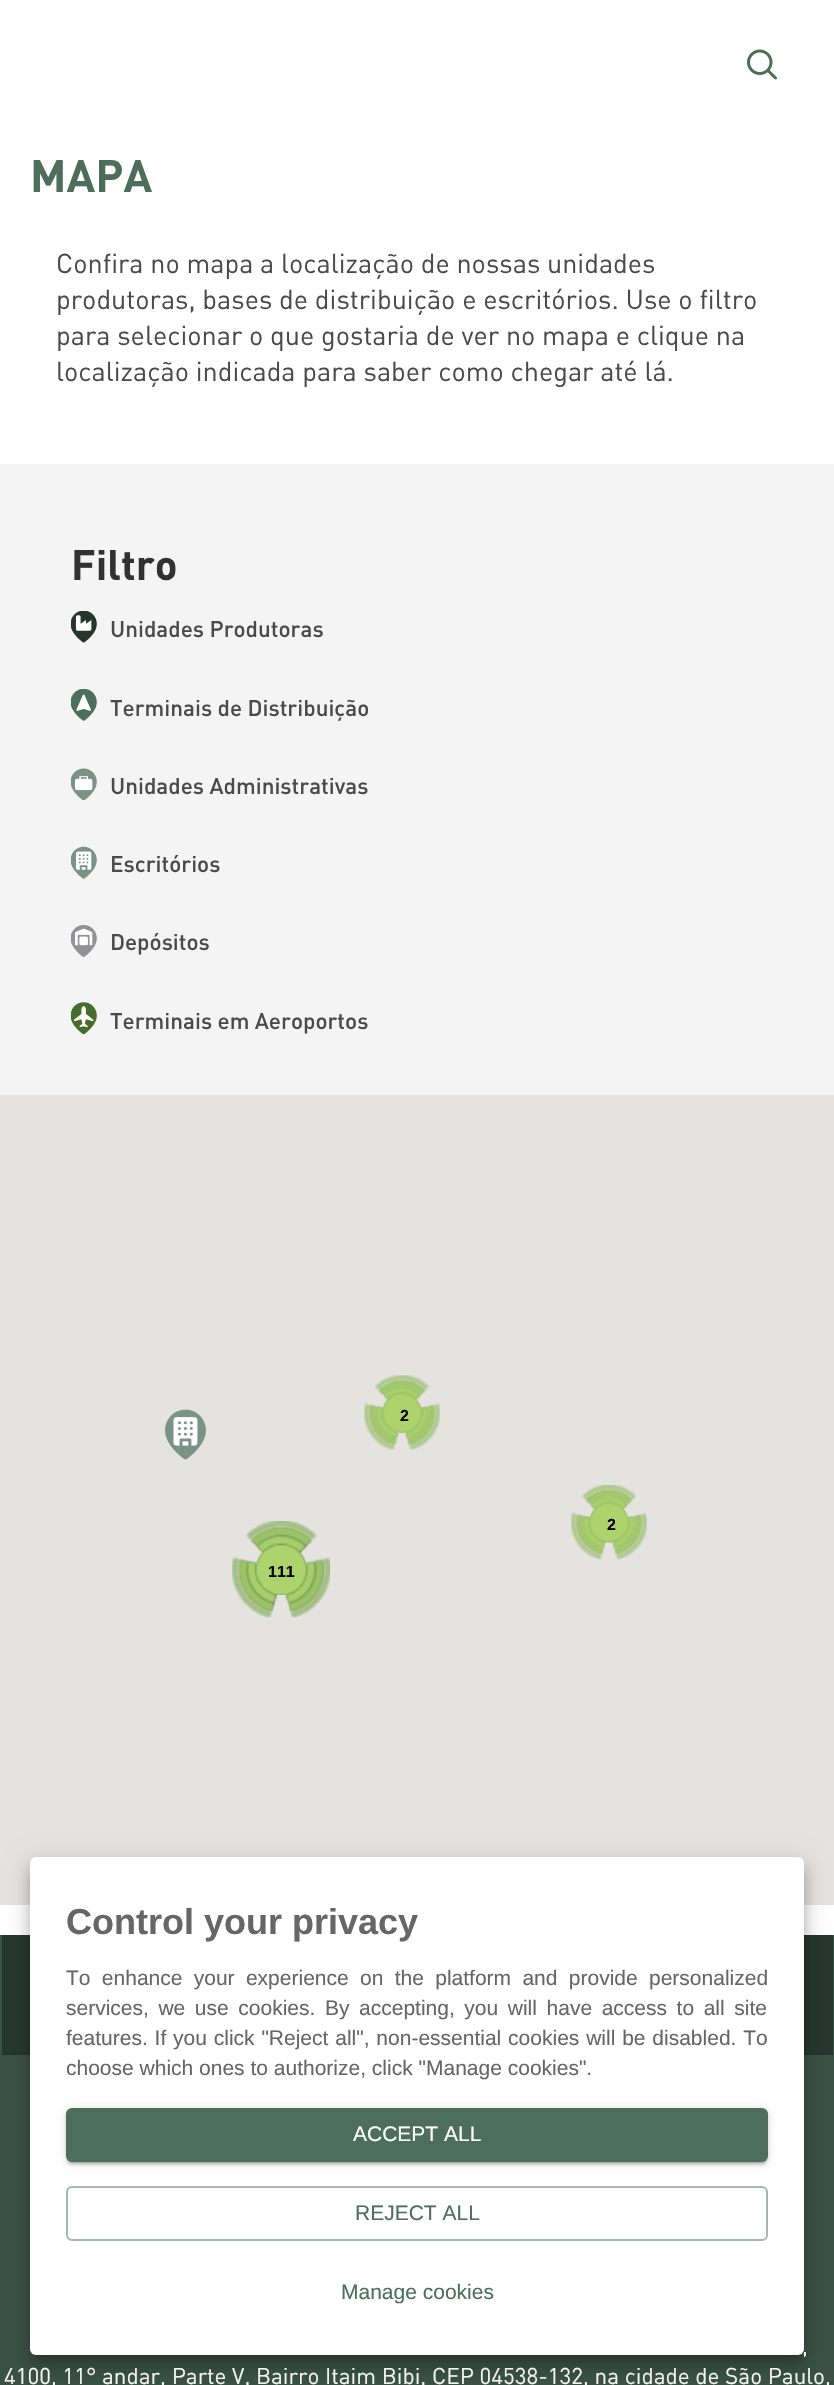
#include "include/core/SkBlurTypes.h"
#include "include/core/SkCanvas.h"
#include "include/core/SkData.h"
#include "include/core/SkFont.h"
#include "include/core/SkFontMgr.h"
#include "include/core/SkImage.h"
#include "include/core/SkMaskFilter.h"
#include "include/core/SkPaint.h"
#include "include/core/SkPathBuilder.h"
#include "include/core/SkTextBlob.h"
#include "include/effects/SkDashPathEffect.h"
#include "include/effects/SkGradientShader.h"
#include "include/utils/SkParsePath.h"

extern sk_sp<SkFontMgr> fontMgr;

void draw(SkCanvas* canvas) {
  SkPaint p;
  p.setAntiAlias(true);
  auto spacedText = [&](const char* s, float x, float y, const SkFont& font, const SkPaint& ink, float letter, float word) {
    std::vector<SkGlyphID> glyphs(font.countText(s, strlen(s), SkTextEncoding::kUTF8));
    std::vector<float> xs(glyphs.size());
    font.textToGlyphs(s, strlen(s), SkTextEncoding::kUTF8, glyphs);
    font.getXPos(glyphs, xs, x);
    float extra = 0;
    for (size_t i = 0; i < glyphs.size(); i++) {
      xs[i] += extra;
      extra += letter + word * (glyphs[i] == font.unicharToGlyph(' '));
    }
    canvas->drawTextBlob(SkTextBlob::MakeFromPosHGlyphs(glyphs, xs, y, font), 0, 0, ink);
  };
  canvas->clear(SK_ColorWHITE);
  canvas->drawImageRect(SkImages::DeferredFromEncodedData(SkData::MakeFromFileName("images/1.png")), SkRect::MakeLTRB(747, 49, 777, 80), SkSamplingOptions());
  p.setColor(SkColorSetRGB(244, 244, 244));
  canvas->drawRect(SkRect::MakeLTRB(0, 464, 834, 1095), p);
  canvas->drawImageRect(SkImages::DeferredFromEncodedData(SkData::MakeFromFileName("images/2.png")), SkRect::MakeLTRB(71, 611, 97, 643), SkSamplingOptions());
  canvas->drawImageRect(SkImages::DeferredFromEncodedData(SkData::MakeFromFileName("images/3.png")), SkRect::MakeLTRB(71, 689, 97, 721), SkSamplingOptions());
  canvas->drawImageRect(SkImages::DeferredFromEncodedData(SkData::MakeFromFileName("images/4.png")), SkRect::MakeLTRB(71, 768, 97, 800), SkSamplingOptions());
  canvas->drawImageRect(SkImages::DeferredFromEncodedData(SkData::MakeFromFileName("images/5.png")), SkRect::MakeLTRB(71, 846, 97, 879), SkSamplingOptions());
  canvas->drawImageRect(SkImages::DeferredFromEncodedData(SkData::MakeFromFileName("images/6.png")), SkRect::MakeLTRB(71, 925, 97, 957), SkSamplingOptions());
  canvas->drawImageRect(SkImages::DeferredFromEncodedData(SkData::MakeFromFileName("images/7.png")), SkRect::MakeLTRB(71, 1002, 97, 1035), SkSamplingOptions());
  p.setColor(SkColorSetRGB(229, 227, 223));
  canvas->drawRect(SkRect::MakeLTRB(0, 1095, 834, 1905), p);
  canvas->drawImageRect(SkImages::DeferredFromEncodedData(SkData::MakeFromFileName("images/8.png")), SkRect::MakeLTRB(165, 1409, 206, 1460), SkSamplingOptions());
  canvas->drawImageRect(SkImages::DeferredFromEncodedData(SkData::MakeFromFileName("images/9.png")), SkRect::MakeLTRB(364, 1375, 440, 1450), SkSamplingOptions());
  canvas->drawImageRect(SkImages::DeferredFromEncodedData(SkData::MakeFromFileName("images/10.png")), SkRect::MakeLTRB(364, 1375, 440, 1450), SkSamplingOptions());
  canvas->drawImageRect(SkImages::DeferredFromEncodedData(SkData::MakeFromFileName("images/11.png")), SkRect::MakeLTRB(364, 1375, 440, 1450), SkSamplingOptions());
  canvas->drawImageRect(SkImages::DeferredFromEncodedData(SkData::MakeFromFileName("images/12.png")), SkRect::MakeLTRB(364, 1375, 440, 1450), SkSamplingOptions());
  canvas->drawImageRect(SkImages::DeferredFromEncodedData(SkData::MakeFromFileName("images/13.png")), SkRect::MakeLTRB(571, 1485, 647, 1560), SkSamplingOptions());
  canvas->drawImageRect(SkImages::DeferredFromEncodedData(SkData::MakeFromFileName("images/14.png")), SkRect::MakeLTRB(571, 1485, 647, 1560), SkSamplingOptions());
  canvas->drawImageRect(SkImages::DeferredFromEncodedData(SkData::MakeFromFileName("images/15.png")), SkRect::MakeLTRB(571, 1485, 647, 1559), SkSamplingOptions());
  canvas->drawImageRect(SkImages::DeferredFromEncodedData(SkData::MakeFromFileName("images/21.png")), SkRect::MakeLTRB(240, 1528, 324, 1612), SkSamplingOptions());
  canvas->drawImageRect(SkImages::DeferredFromEncodedData(SkData::MakeFromFileName("images/22.png")), SkRect::MakeLTRB(240, 1528, 324, 1612), SkSamplingOptions());
  canvas->drawImageRect(SkImages::DeferredFromEncodedData(SkData::MakeFromFileName("images/16.png")), SkRect::MakeLTRB(232, 1521, 330, 1618), SkSamplingOptions());
  canvas->drawImageRect(SkImages::DeferredFromEncodedData(SkData::MakeFromFileName("images/17.png")), SkRect::MakeLTRB(571, 1485, 647, 1559), SkSamplingOptions());
  canvas->drawImageRect(SkImages::DeferredFromEncodedData(SkData::MakeFromFileName("images/18.png")), SkRect::MakeLTRB(232, 1521, 330, 1618), SkSamplingOptions());
  canvas->drawImageRect(SkImages::DeferredFromEncodedData(SkData::MakeFromFileName("images/19.png")), SkRect::MakeLTRB(232, 1521, 330, 1618), SkSamplingOptions());
  canvas->drawImageRect(SkImages::DeferredFromEncodedData(SkData::MakeFromFileName("images/20.png")), SkRect::MakeLTRB(232, 1521, 330, 1617), SkSamplingOptions());
  canvas->drawImageRect(SkImages::DeferredFromEncodedData(SkData::MakeFromFileName("images/23.png")), SkRect::MakeLTRB(232, 1521, 330, 1617), SkSamplingOptions());
  p.setColor(SkColorSetRGB(58, 82, 70));
  canvas->drawRect(SkRect::MakeLTRB(0, 2055, 834, 2385), p);
  p.setColor(SkColorSetRGB(38, 54, 46));
  canvas->drawRect(SkRect::MakeLTRB(2, 1935, 833, 2055), p);
  p.setColor(SkColorSetRGB(58, 82, 70));
  canvas->drawRect(SkRect::MakeLTRB(0, 1935, 2, 2055), p);
  canvas->drawRect(SkRect::MakeLTRB(833, 1935, 834, 2055), p);
  p.setColor(SkColorSetARGB(31, 0, 0, 0));
  p.setMaskFilter(SkMaskFilter::MakeBlur(kNormal_SkBlurStyle, 10.5f));
  canvas->drawRoundRect(SkRect::MakeLTRB(27, 1859, 807, 2363), 9, 9, p);
  p.setMaskFilter(nullptr);
  p.setColor(SkColorSetARGB(36, 0, 0, 0));
  p.setMaskFilter(SkMaskFilter::MakeBlur(kNormal_SkBlurStyle, 7.5f));
  canvas->drawRoundRect(SkRect::MakeLTRB(29, 1868, 806, 2369), 8, 8, p);
  p.setMaskFilter(nullptr);
  p.setColor(SkColorSetARGB(51, 0, 0, 0));
  p.setMaskFilter(SkMaskFilter::MakeBlur(kNormal_SkBlurStyle, 4));
  canvas->drawRoundRect(SkRect::MakeLTRB(35, 1869, 800, 2358), 1.5f, 1.5f, p);
  p.setMaskFilter(nullptr);
  p.setColor(SK_ColorWHITE);
  canvas->drawRoundRect(SkRect::MakeLTRB(30, 1857, 804, 2355), 6, 6, p);
  p.setColor(SkColorSetARGB(31, 0, 0, 0));
  p.setMaskFilter(SkMaskFilter::MakeBlur(kNormal_SkBlurStyle, 4));
  canvas->drawRoundRect(SkRect::MakeLTRB(66, 2109, 768, 2163), 6, 6, p);
  p.setMaskFilter(nullptr);
  p.setColor(SkColorSetARGB(36, 0, 0, 0));
  p.setMaskFilter(SkMaskFilter::MakeBlur(kNormal_SkBlurStyle, 1.5f));
  canvas->drawRoundRect(SkRect::MakeLTRB(66, 2111, 768, 2165), 6, 6, p);
  p.setMaskFilter(nullptr);
  p.setColor(SkColorSetARGB(51, 0, 0, 0));
  p.setMaskFilter(SkMaskFilter::MakeBlur(kNormal_SkBlurStyle, 1));
  canvas->drawRoundRect(SkRect::MakeLTRB(69, 2115, 765, 2163), 3, 3, p);
  p.setMaskFilter(nullptr);
  p.setColor(SkColorSetRGB(77, 109, 93));
  canvas->drawRoundRect(SkRect::MakeLTRB(66, 2108, 768, 2162), 6, 6, p);
  p.setStyle(SkPaint::kStroke_Style);
  p.setStrokeWidth(2);
  p.setColor(SkColorSetRGB(166, 182, 174));
  canvas->drawRoundRect(SkRect::MakeLTRB(67, 2187, 767, 2240), 5, 5, p);
  SkFont font1(fontMgr->matchFamilyStyle("DIN", SkFontStyle::Bold()), 45);
  font1.setSubpixel(true);
  p.setStyle(SkPaint::kFill_Style);
  p.setColor(SkColorSetRGB(77, 109, 93));
  canvas->drawString("MAPA", 30, 192, font1, p);
  SkFont font2(fontMgr->matchFamilyStyle("DIN", SkFontStyle::Normal()), 27);
  font2.setSubpixel(true);
  p.setColor(SkColorSetRGB(74, 74, 74));
  canvas->drawString("Confira no mapa a localização de nossas unidades", 56, 273, font2, p);
  canvas->drawString("produtoras, bases de distribuição e escritórios. Use o filtro", 56, 309, font2, p);
  canvas->drawString("para selecionar o que gostaria de ver no mapa e clique na", 56, 345, font2, p);
  canvas->drawString("localização indicada para saber como chegar até lá.", 56, 381, font2, p);
  SkFont font3(fontMgr->matchFamilyStyle("DIN", SkFontStyle::Bold()), 42);
  font3.setSubpixel(true);
  p.setColor(SkColorSetRGB(50, 50, 50));
  canvas->drawString("Filtro", 71, 580, font3, p);
  SkFont font4(fontMgr->matchFamilyStyle("DIN", SkFontStyle(500, SkFontStyle::kNormal_Width, SkFontStyle::kUpright_Slant)), 22.5f);
  font4.setSubpixel(true);
  p.setColor(SkColorSetRGB(74, 74, 74));
  canvas->drawString("Unidades Produtoras", 110, 637, font4, p);
  canvas->drawString("Terminais de Distribuição", 110, 716, font4, p);
  canvas->drawString("Unidades Administrativas", 110, 794, font4, p);
  canvas->drawString("Escritórios", 110, 872, font4, p);
  canvas->drawString("Depósitos", 110, 950, font4, p);
  canvas->drawString("Terminais em Aeroportos", 110, 1029, font4, p);
  SkFont font5(fontMgr->matchFamilyStyle("Liberation Sans", SkFontStyle::Bold()), 16);
  font5.setSubpixel(true);
  p.setColor(SK_ColorBLACK);
  canvas->drawString("2", 400, 1421, font5, p);
  canvas->drawString("2", 607, 1530, font5, p);
  canvas->drawString("111", 268, 1577, font5, p);
  SkFont font6(fontMgr->matchFamilyStyle("Liberation Sans", SkFontStyle::Bold()), 36);
  font6.setSubpixel(true);
  p.setColor(SkColorSetRGB(102, 102, 102));
  canvas->drawString("Control your privacy", 66, 1934, font6, p);
  SkFont font7(fontMgr->matchFamilyStyle("Liberation Sans", SkFontStyle::Normal()), 21);
  font7.setSubpixel(true);
  spacedText("To enhance your experience on the platform and provide personalized", 66, 1985, font7, p, 0, 5.5f);
  spacedText("services, we use cookies. By accepting, you will have access to all site", 66, 2015, font7, p, 0, 3.75f);
  spacedText("features. If you click \"Reject all\", non-essential cookies will be disabled. To", 66, 2045, font7, p, 0, 1);
  canvas->drawString("choose which ones to authorize, click \"Manage cookies\".", 66, 2075, font7, p);
  p.setColor(SK_ColorWHITE);
  canvas->drawString("ACCEPT ALL", 353, 2141, font7, p);
  p.setColor(SkColorSetRGB(77, 109, 93));
  canvas->drawString("REJECT ALL", 355, 2220, font7, p);
  canvas->drawString("Manage cookies", 341, 2299, font7, p);
  SkFont font8(fontMgr->matchFamilyStyle("DIN", SkFontStyle::Normal()), 22.5f);
  font8.setSubpixel(true);
  p.setColor(SkColorSetRGB(244, 244, 244));
  canvas->drawString(",", 802, 2354, font8, p);
  canvas->drawString("4100, 11° andar, Parte V, Bairro Itaim Bibi, CEP 04538-132, na cidade de São Paulo,", 4, 2384, font8, p);
}
